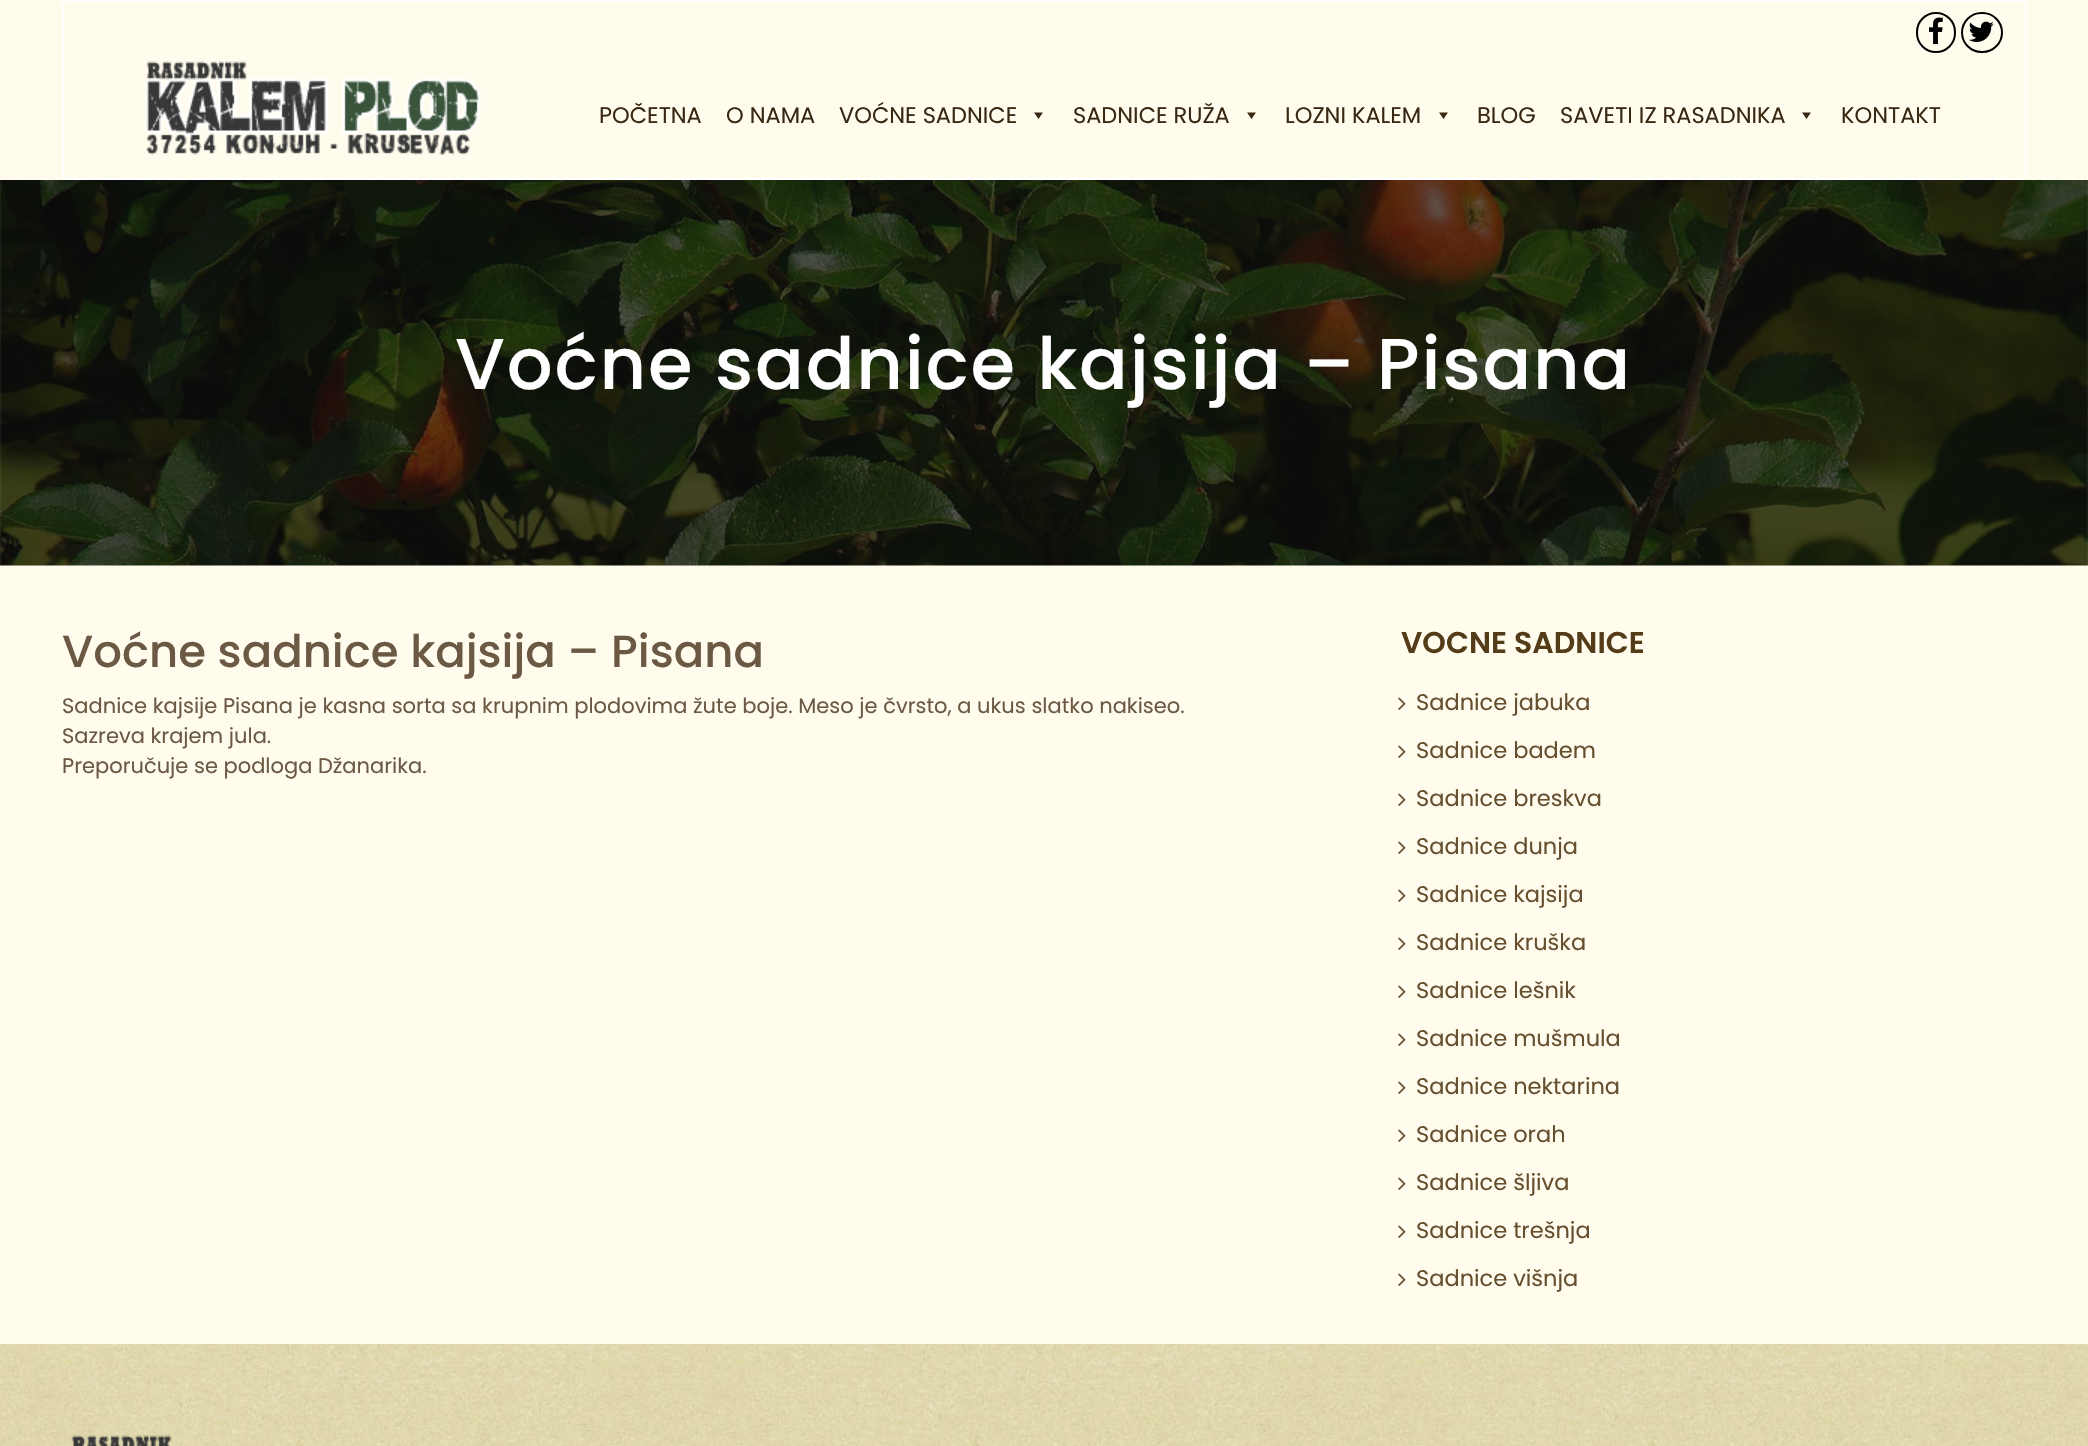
#include "include/core/SkBlurTypes.h"
#include "include/core/SkCanvas.h"
#include "include/core/SkData.h"
#include "include/core/SkFont.h"
#include "include/core/SkFontMgr.h"
#include "include/core/SkImage.h"
#include "include/core/SkMaskFilter.h"
#include "include/core/SkPaint.h"
#include "include/core/SkPathBuilder.h"
#include "include/core/SkTextBlob.h"
#include "include/effects/SkDashPathEffect.h"
#include "include/effects/SkGradientShader.h"
#include "include/utils/SkParsePath.h"

extern sk_sp<SkFontMgr> fontMgr;

void draw(SkCanvas* canvas) {
  SkPaint p;
  p.setAntiAlias(true);
  auto spacedText = [&](const char* s, float x, float y, const SkFont& font, const SkPaint& ink, float letter, float word) {
    std::vector<SkGlyphID> glyphs(font.countText(s, strlen(s), SkTextEncoding::kUTF8));
    std::vector<float> xs(glyphs.size());
    font.textToGlyphs(s, strlen(s), SkTextEncoding::kUTF8, glyphs);
    font.getXPos(glyphs, xs, x);
    float extra = 0;
    for (size_t i = 0; i < glyphs.size(); i++) {
      xs[i] += extra;
      extra += letter + word * (glyphs[i] == font.unicharToGlyph(' '));
    }
    canvas->drawTextBlob(SkTextBlob::MakeFromPosHGlyphs(glyphs, xs, y, font), 0, 0, ink);
  };
  canvas->clear(SkColorSetRGB(255, 252, 238));
  p.setStyle(SkPaint::kStroke_Style);
  p.setStrokeWidth(2);
  p.setColor(SK_ColorWHITE);
  canvas->drawRoundRect(SkRect::MakeLTRB(63, 1, 2026, 179), 5, 5, p);
  p.setColor(SK_ColorBLACK);
  canvas->drawRoundRect(SkRect::MakeLTRB(1917, 13, 1955, 52), 19, 19, p);
  canvas->drawImageRect(SkImages::DeferredFromEncodedData(SkData::MakeFromFileName("images/1.png")), SkRect::MakeLTRB(1929, 17, 1943, 45), SkSamplingOptions());
  canvas->drawRoundRect(SkRect::MakeLTRB(1962, 13, 2002, 52), 19.5f, 19.5f, p);
  canvas->drawImageRect(SkImages::DeferredFromEncodedData(SkData::MakeFromFileName("images/2.png")), SkRect::MakeLTRB(1969, 21, 1994, 42), SkSamplingOptions());
  canvas->drawImageRect(SkImages::DeferredFromEncodedData(SkData::MakeFromFileName("images/3.png")), SkRect::MakeLTRB(145, 61, 481, 155), SkSamplingOptions());
  p.setStyle(SkPaint::kFill_Style);
  p.setColor(SkColorSetRGB(57, 41, 19));
  canvas->drawPath(SkPathBuilder().moveTo(1043, 112.5f).lineTo(1038.5f, 119).lineTo(1034, 112.5f).close().detach(), p);
  canvas->drawPath(SkPathBuilder().moveTo(1256, 112.5f).lineTo(1251.5f, 119).lineTo(1247, 112.5f).close().detach(), p);
  canvas->drawPath(SkPathBuilder().moveTo(1448, 112.5f).lineTo(1443.5f, 119).lineTo(1439, 112.5f).close().detach(), p);
  canvas->drawPath(SkPathBuilder().moveTo(1811, 112.5f).lineTo(1806.5f, 119).lineTo(1802, 112.5f).close().detach(), p);
  canvas->drawImageRect(SkImages::DeferredFromEncodedData(SkData::MakeFromFileName("images/4.png")), SkRect::MakeLTRB(0, 180, 2088, 566), SkSamplingOptions());
  canvas->drawImageRect(SkImages::DeferredFromEncodedData(SkData::MakeFromFileName("images/5.png")), SkRect::MakeLTRB(1398, 697, 1406, 710), SkSamplingOptions());
  canvas->drawImageRect(SkImages::DeferredFromEncodedData(SkData::MakeFromFileName("images/5.png")), SkRect::MakeLTRB(1398, 745, 1406, 758), SkSamplingOptions());
  canvas->drawImageRect(SkImages::DeferredFromEncodedData(SkData::MakeFromFileName("images/5.png")), SkRect::MakeLTRB(1398, 793, 1406, 806), SkSamplingOptions());
  canvas->drawImageRect(SkImages::DeferredFromEncodedData(SkData::MakeFromFileName("images/5.png")), SkRect::MakeLTRB(1398, 841, 1406, 854), SkSamplingOptions());
  canvas->drawImageRect(SkImages::DeferredFromEncodedData(SkData::MakeFromFileName("images/5.png")), SkRect::MakeLTRB(1398, 889, 1406, 902), SkSamplingOptions());
  canvas->drawImageRect(SkImages::DeferredFromEncodedData(SkData::MakeFromFileName("images/5.png")), SkRect::MakeLTRB(1398, 937, 1406, 950), SkSamplingOptions());
  canvas->drawImageRect(SkImages::DeferredFromEncodedData(SkData::MakeFromFileName("images/5.png")), SkRect::MakeLTRB(1398, 985, 1406, 998), SkSamplingOptions());
  canvas->drawImageRect(SkImages::DeferredFromEncodedData(SkData::MakeFromFileName("images/5.png")), SkRect::MakeLTRB(1398, 1033, 1406, 1046), SkSamplingOptions());
  canvas->drawImageRect(SkImages::DeferredFromEncodedData(SkData::MakeFromFileName("images/5.png")), SkRect::MakeLTRB(1398, 1081, 1406, 1094), SkSamplingOptions());
  canvas->drawImageRect(SkImages::DeferredFromEncodedData(SkData::MakeFromFileName("images/5.png")), SkRect::MakeLTRB(1398, 1129, 1406, 1142), SkSamplingOptions());
  canvas->drawImageRect(SkImages::DeferredFromEncodedData(SkData::MakeFromFileName("images/5.png")), SkRect::MakeLTRB(1398, 1177, 1406, 1190), SkSamplingOptions());
  canvas->drawImageRect(SkImages::DeferredFromEncodedData(SkData::MakeFromFileName("images/5.png")), SkRect::MakeLTRB(1398, 1225, 1406, 1238), SkSamplingOptions());
  canvas->drawImageRect(SkImages::DeferredFromEncodedData(SkData::MakeFromFileName("images/5.png")), SkRect::MakeLTRB(1398, 1273, 1406, 1286), SkSamplingOptions());
  canvas->drawImageRect(SkImages::DeferredFromEncodedData(SkData::MakeFromFileName("images/6.png")), SkRect::MakeLTRB(0, 1344, 2088, 1446), SkSamplingOptions());
  canvas->drawImageRect(SkImages::DeferredFromEncodedData(SkData::MakeFromFileName("images/7.png")), SkRect::MakeLTRB(71, 1435, 172, 1446), SkSamplingOptions());
  SkFont font1(fontMgr->matchFamilyStyle("Poppins", SkFontStyle::Normal()), 22.5f);
  font1.setSubpixel(true);
  canvas->drawString("POČETNA", 599, 123, font1, p);
  canvas->drawString("O NAMA", 726, 123, font1, p);
  canvas->drawString("VOĆNE SADNICE", 839, 123, font1, p);
  canvas->drawString("SADNICE RUŽA", 1073, 123, font1, p);
  canvas->drawString("LOZNI KALEM", 1285, 123, font1, p);
  canvas->drawString("BLOG", 1477, 123, font1, p);
  canvas->drawString("SAVETI IZ RASADNIKA", 1560, 123, font1, p);
  canvas->drawString("KONTAKT", 1841, 123, font1, p);
  SkFont font2(fontMgr->matchFamilyStyle("Poppins", SkFontStyle(500, SkFontStyle::kNormal_Width, SkFontStyle::kUpright_Slant)), 72);
  font2.setSubpixel(true);
  p.setColor(SK_ColorWHITE);
  spacedText("Voćne sadnice kajsija – Pisana", 455, 389, font2, p, 1.8f, 0);
  SkFont font3(fontMgr->matchFamilyStyle("Poppins", SkFontStyle(500, SkFontStyle::kNormal_Width, SkFontStyle::kUpright_Slant)), 45);
  font3.setSubpixel(true);
  p.setColor(SkColorSetRGB(108, 89, 68));
  canvas->drawString("Voćne sadnice kajsija – Pisana", 62, 667, font3, p);
  SkFont font4(fontMgr->matchFamilyStyle("Poppins", SkFontStyle::Normal()), 21);
  font4.setSubpixel(true);
  canvas->drawString("Sadnice kajsije Pisana je kasna sorta sa krupnim plodovima žute boje. Meso je čvrsto, a ukus slatko nakiseo.", 62, 713, font4, p);
  canvas->drawString("Sazreva krajem jula.", 62, 743, font4, p);
  canvas->drawString("Preporučuje se podloga Džanarika.", 62, 773, font4, p);
  SkFont font5(fontMgr->matchFamilyStyle("Poppins", SkFontStyle(600, SkFontStyle::kNormal_Width, SkFontStyle::kUpright_Slant)), 30);
  font5.setSubpixel(true);
  p.setColor(SkColorSetRGB(85, 60, 25));
  canvas->drawString("VOCNE SADNICE", 1401, 653, font5, p);
  p.setColor(SkColorSetRGB(102, 79, 46));
  canvas->drawString("Sadnice jabuka", 1416, 710, font1, p);
  canvas->drawString("Sadnice badem", 1416, 758, font1, p);
  canvas->drawString("Sadnice breskva", 1416, 806, font1, p);
  canvas->drawString("Sadnice dunja", 1416, 854, font1, p);
  canvas->drawString("Sadnice kajsija", 1416, 902, font1, p);
  canvas->drawString("Sadnice kruška", 1416, 950, font1, p);
  canvas->drawString("Sadnice lešnik", 1416, 998, font1, p);
  canvas->drawString("Sadnice mušmula", 1416, 1046, font1, p);
  canvas->drawString("Sadnice nektarina", 1416, 1094, font1, p);
  canvas->drawString("Sadnice orah", 1416, 1142, font1, p);
  canvas->drawString("Sadnice šljiva", 1416, 1190, font1, p);
  canvas->drawString("Sadnice trešnja", 1416, 1238, font1, p);
  canvas->drawString("Sadnice višnja", 1416, 1286, font1, p);
}
